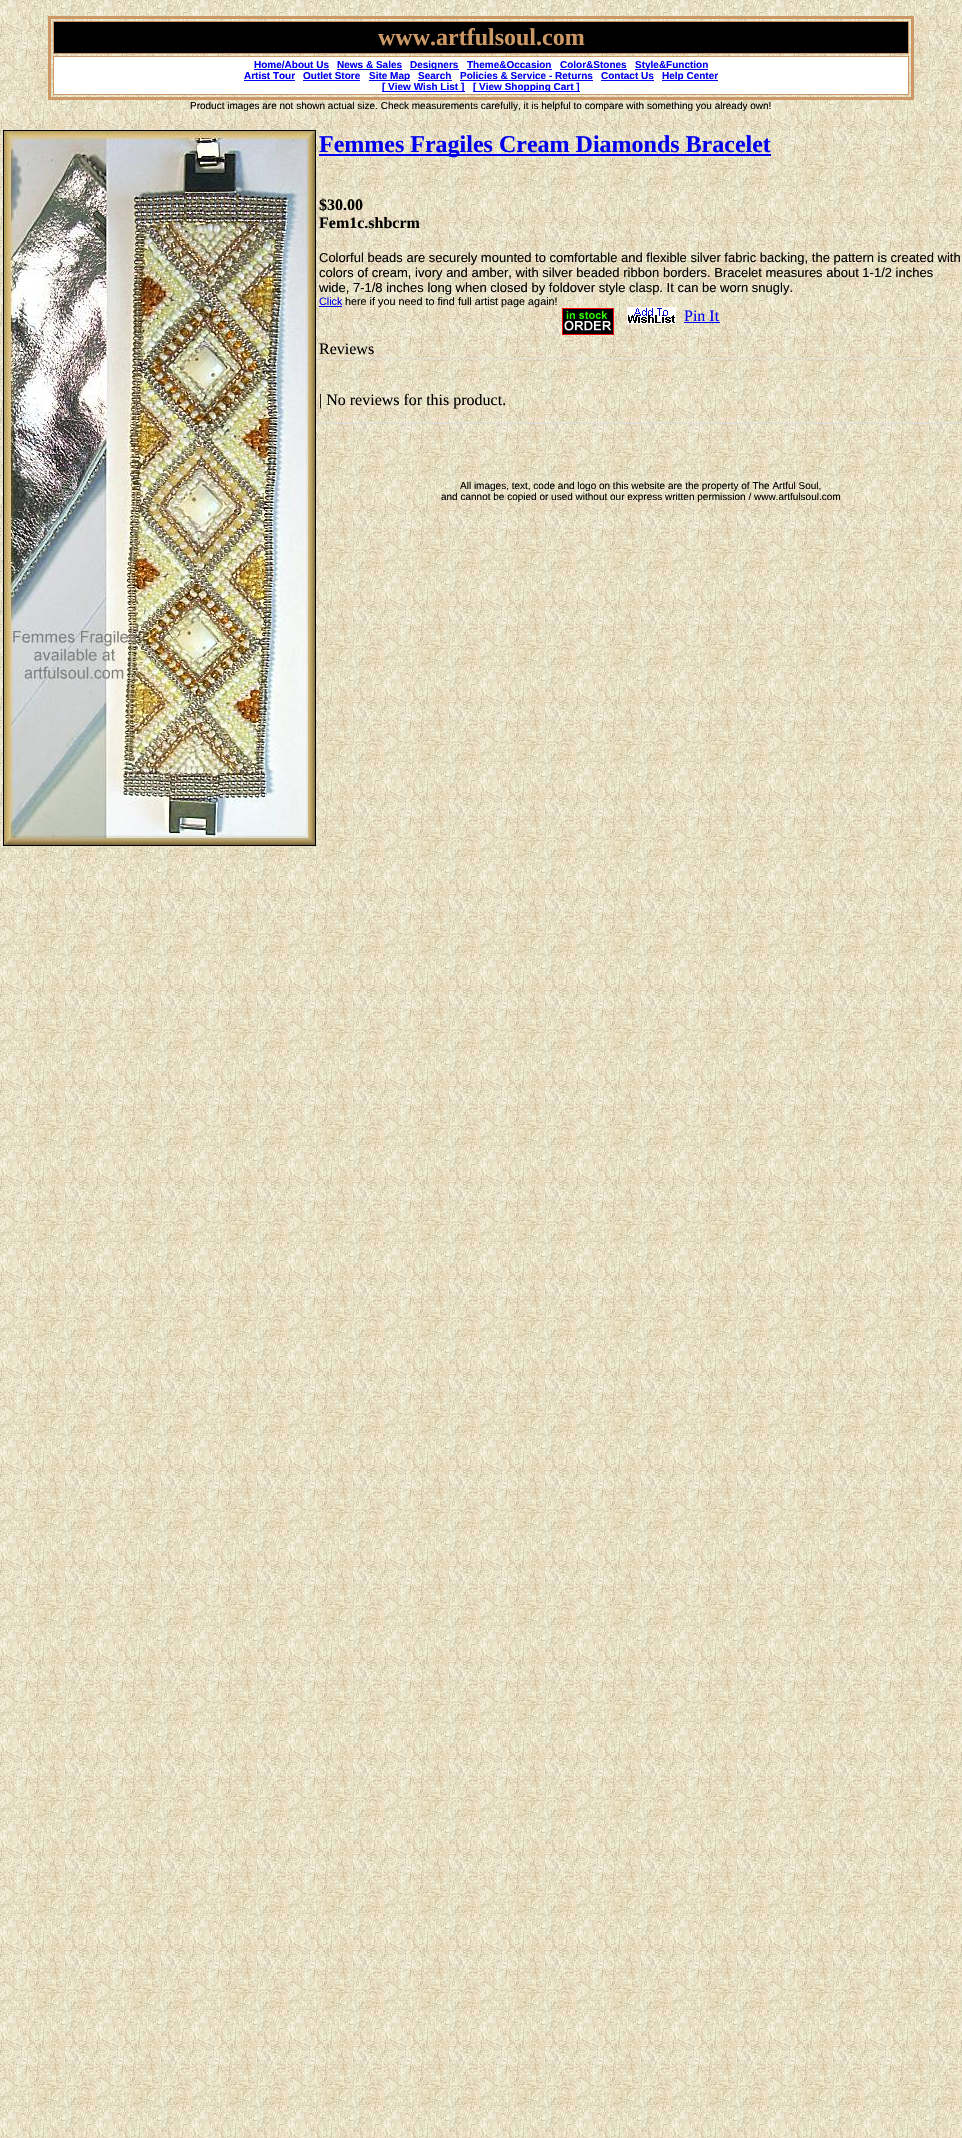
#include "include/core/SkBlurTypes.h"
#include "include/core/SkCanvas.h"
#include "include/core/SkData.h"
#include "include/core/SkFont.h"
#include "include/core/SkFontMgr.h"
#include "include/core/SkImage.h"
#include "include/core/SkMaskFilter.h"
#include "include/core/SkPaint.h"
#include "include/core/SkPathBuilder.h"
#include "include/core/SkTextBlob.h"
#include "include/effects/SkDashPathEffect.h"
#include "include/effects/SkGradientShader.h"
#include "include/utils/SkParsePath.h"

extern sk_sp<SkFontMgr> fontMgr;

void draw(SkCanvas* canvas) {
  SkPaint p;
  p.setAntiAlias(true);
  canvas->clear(SK_ColorWHITE);
  canvas->drawImageRect(SkImages::DeferredFromEncodedData(SkData::MakeFromFileName("images/1.png")), SkRect::MakeLTRB(0, 0, 962, 2138), SkSamplingOptions());
  p.setStyle(SkPaint::kStroke_Style);
  p.setStrokeWidth(3);
  p.setColor(SkColorSetRGB(204, 153, 102));
  canvas->drawRect(SkRect::MakeLTRB(49.5f, 17.5f, 912.5f, 98.5f), p);
  p.setStyle(SkPaint::kFill_Style);
  p.setColor(SK_ColorBLACK);
  canvas->drawRect(SkRect::MakeLTRB(53.5f, 21.5f, 908.5f, 53.5f), p);
  p.setStyle(SkPaint::kStroke_Style);
  p.setStrokeWidth(1);
  p.setColor(SkColorSetRGB(204, 153, 102));
  canvas->drawRect(SkRect::MakeLTRB(53.5f, 21.5f, 908.5f, 53.5f), p);
  p.setStyle(SkPaint::kFill_Style);
  p.setColor(SK_ColorWHITE);
  canvas->drawRect(SkRect::MakeLTRB(53.5f, 56.5f, 908.5f, 94.5f), p);
  p.setStyle(SkPaint::kStroke_Style);
  p.setColor(SkColorSetRGB(204, 153, 102));
  canvas->drawRect(SkRect::MakeLTRB(53.5f, 56.5f, 908.5f, 94.5f), p);
  p.setStyle(SkPaint::kFill_Style);
  p.setColor(SkColorSetRGB(0, 0, 238));
  canvas->drawRect(SkRect::MakeLTRB(254, 69, 329, 70), p);
  canvas->drawRect(SkRect::MakeLTRB(337, 69, 402, 70), p);
  canvas->drawRect(SkRect::MakeLTRB(410, 69, 459, 70), p);
  canvas->drawRect(SkRect::MakeLTRB(467, 69, 552, 70), p);
  canvas->drawRect(SkRect::MakeLTRB(560, 69, 627, 70), p);
  canvas->drawRect(SkRect::MakeLTRB(635, 69, 708, 70), p);
  canvas->drawRect(SkRect::MakeLTRB(244, 80, 295, 81), p);
  canvas->drawRect(SkRect::MakeLTRB(303, 80, 360, 81), p);
  canvas->drawRect(SkRect::MakeLTRB(369, 80, 410, 81), p);
  canvas->drawRect(SkRect::MakeLTRB(418, 80, 452, 81), p);
  canvas->drawRect(SkRect::MakeLTRB(460, 80, 593, 81), p);
  canvas->drawRect(SkRect::MakeLTRB(601, 80, 654, 81), p);
  canvas->drawRect(SkRect::MakeLTRB(662, 80, 718, 81), p);
  canvas->drawRect(SkRect::MakeLTRB(382, 91, 465, 92), p);
  canvas->drawRect(SkRect::MakeLTRB(473, 91, 580, 92), p);
  p.setColor(SkColorSetRGB(221, 221, 221));
  canvas->drawRect(SkRect::MakeLTRB(0, 358, 962, 359), p);
  canvas->drawRect(SkRect::MakeLTRB(0, 423, 962, 424), p);
  p.setStyle(SkPaint::kStroke_Style);
  p.setColor(SK_ColorBLACK);
  canvas->drawRect(SkRect::MakeLTRB(3.5f, 130.5f, 315.5f, 845.5f), p);
  canvas->drawImageRect(SkImages::DeferredFromEncodedData(SkData::MakeFromFileName("images/2.png")), SkRect::MakeLTRB(4, 131, 315, 845), SkSamplingOptions());
  p.setStyle(SkPaint::kFill_Style);
  p.setColor(SkColorSetRGB(0, 0, 238));
  canvas->drawRect(SkRect::MakeLTRB(319, 154, 771, 156), p);
  canvas->drawRect(SkRect::MakeLTRB(319, 306, 342, 307), p);
  canvas->drawImageRect(SkImages::DeferredFromEncodedData(SkData::MakeFromFileName("images/3.png")), SkRect::MakeLTRB(562, 308, 614, 335), SkSamplingOptions());
  canvas->drawImageRect(SkImages::DeferredFromEncodedData(SkData::MakeFromFileName("images/4.png")), SkRect::MakeLTRB(627, 307, 676, 324), SkSamplingOptions());
  canvas->drawRect(SkRect::MakeLTRB(684, 322, 720, 323), p);
  SkFont font1(fontMgr->matchFamilyStyle("Liberation Serif", SkFontStyle::Bold()), 24);
  font1.setSubpixel(true);
  p.setColor(SkColorSetRGB(204, 153, 102));
  canvas->drawString("www.artfulsoul.com", 378, 45, font1, p);
  SkFont font2(fontMgr->matchFamilyStyle("Liberation Sans", SkFontStyle::Bold()), 10);
  font2.setSubpixel(true);
  p.setColor(SkColorSetRGB(0, 0, 238));
  canvas->drawString("Home/About Us", 254, 68, font2, p);
  canvas->drawString("News & Sales", 337, 68, font2, p);
  canvas->drawString("Designers", 410, 68, font2, p);
  canvas->drawString("Theme&Occasion", 467, 68, font2, p);
  canvas->drawString("Color&Stones", 560, 68, font2, p);
  canvas->drawString("Style&Function", 635, 68, font2, p);
  canvas->drawString("Artist Tour", 244, 79, font2, p);
  canvas->drawString("Outlet Store", 303, 79, font2, p);
  canvas->drawString("Site Map", 369, 79, font2, p);
  canvas->drawString("Search", 418, 79, font2, p);
  canvas->drawString("Policies & Service - Returns", 460, 79, font2, p);
  canvas->drawString("Contact Us", 601, 79, font2, p);
  canvas->drawString("Help Center", 662, 79, font2, p);
  canvas->drawString("[ View Wish List ]", 382, 90, font2, p);
  canvas->drawString("[ View Shopping Cart ]", 473, 90, font2, p);
  SkFont font3(fontMgr->matchFamilyStyle("Liberation Sans", SkFontStyle::Normal()), 10);
  font3.setSubpixel(true);
  p.setColor(SK_ColorBLACK);
  canvas->drawString("Product images are not shown actual size. Check measurements carefully, it is helpful to compare with something you already own!", 190, 109, font3, p);
  p.setColor(SkColorSetRGB(0, 0, 238));
  canvas->drawString("Femmes Fragiles Cream Diamonds Bracelet", 319, 152, font1, p);
  SkFont font4(fontMgr->matchFamilyStyle("Liberation Serif", SkFontStyle::Bold()), 16);
  font4.setSubpixel(true);
  p.setColor(SK_ColorBLACK);
  canvas->drawString("$30.00", 319, 210, font4, p);
  canvas->drawString("Fem1c.shbcrm", 319, 228, font4, p);
  SkFont font5(fontMgr->matchFamilyStyle("Liberation Sans", SkFontStyle::Normal()), 13);
  font5.setSubpixel(true);
  canvas->drawString("Colorful beads are securely mounted to comfortable and flexible silver fabric backing, the pattern is created with", 319, 262, font5, p);
  canvas->drawString("colors of cream, ivory and amber, with silver beaded ribbon borders. Bracelet measures about 1-1/2 inches", 319, 277, font5, p);
  canvas->drawString("wide, 7-1/8 inches long when closed by foldover style clasp. It can be worn snugly.", 319, 292, font5, p);
  SkFont font6(fontMgr->matchFamilyStyle("Liberation Sans", SkFontStyle::Normal()), 10.8f);
  font6.setSubpixel(true);
  p.setColor(SkColorSetRGB(0, 0, 238));
  canvas->drawString("Click", 319, 305, font6, p);
  p.setColor(SK_ColorBLACK);
  canvas->drawString("here if you need to find full artist page again!", 345, 305, font6, p);
  SkFont font7(fontMgr->matchFamilyStyle("Liberation Serif", SkFontStyle::Normal()), 16);
  font7.setSubpixel(true);
  p.setColor(SkColorSetRGB(0, 0, 238));
  canvas->drawString("Pin It", 684, 321, font7, p);
  p.setColor(SK_ColorBLACK);
  canvas->drawString("Reviews", 319, 354, font7, p);
  canvas->drawString("| No reviews for this product.", 319, 405, font7, p);
  canvas->drawString("All images, text, code and logo on this website are the property of The Artful Soul,", 460, 489, font3, p);
  canvas->drawString("and cannot be copied or used without our express written permission / www.artfulsoul.com", 441, 500, font3, p);
}
